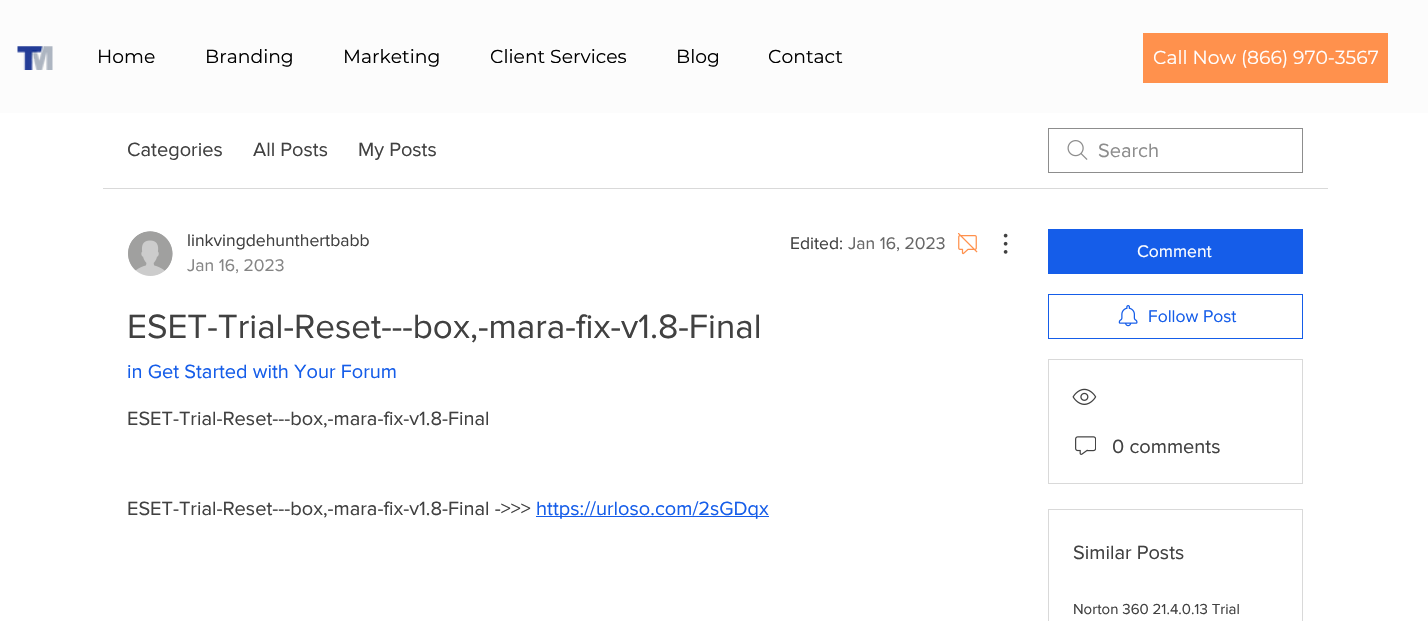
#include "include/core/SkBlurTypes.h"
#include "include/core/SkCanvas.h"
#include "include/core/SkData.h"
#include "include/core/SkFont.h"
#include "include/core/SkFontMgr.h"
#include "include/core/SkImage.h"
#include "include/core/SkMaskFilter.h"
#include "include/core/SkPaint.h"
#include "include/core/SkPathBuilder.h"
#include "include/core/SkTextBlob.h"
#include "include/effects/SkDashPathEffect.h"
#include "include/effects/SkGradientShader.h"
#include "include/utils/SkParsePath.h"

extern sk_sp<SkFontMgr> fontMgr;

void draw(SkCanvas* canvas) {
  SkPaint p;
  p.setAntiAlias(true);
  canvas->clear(SK_ColorWHITE);
  p.setColor(SkColorSetRGB(252, 252, 252));
  canvas->drawRect(SkRect::MakeLTRB(0, 0, 1428, 113), p);
  canvas->drawImageRect(SkImages::DeferredFromEncodedData(SkData::MakeFromFileName("images/1.png")), SkRect::MakeLTRB(17, 46, 53, 70), SkSamplingOptions());
  p.setColor(SkColorSetRGB(255, 145, 77));
  canvas->drawRect(SkRect::MakeLTRB(1143, 33, 1388, 83), p);
  p.setColor(SkColorSetRGB(217, 217, 217));
  canvas->drawRect(SkRect::MakeLTRB(103, 188, 1328, 189), p);
  canvas->drawImageRect(SkImages::DeferredFromEncodedData(SkData::MakeFromFileName("images/2.png")), SkRect::MakeLTRB(1067, 140, 1088, 160), SkSamplingOptions());
  p.setStyle(SkPaint::kStroke_Style);
  p.setStrokeWidth(1);
  p.setColor(SkColorSetRGB(141, 141, 141));
  canvas->drawRect(SkRect::MakeLTRB(1048.5f, 128.5f, 1302.5f, 172.5f), p);
  canvas->drawImageRect(SkImages::DeferredFromEncodedData(SkData::MakeFromFileName("images/3.png")), SkRect::MakeLTRB(128, 231, 173, 276), SkSamplingOptions());
  canvas->drawImageRect(SkImages::DeferredFromEncodedData(SkData::MakeFromFileName("images/4.png")), SkRect::MakeLTRB(958, 233, 978, 255), SkSamplingOptions());
  canvas->drawImageRect(SkImages::DeferredFromEncodedData(SkData::MakeFromFileName("images/5.png")), SkRect::MakeLTRB(1003, 233, 1008, 254), SkSamplingOptions());
  p.setStyle(SkPaint::kFill_Style);
  p.setColor(SkColorSetRGB(21, 93, 233));
  canvas->drawRect(SkRect::MakeLTRB(536, 516, 769, 517), p);
  canvas->drawRect(SkRect::MakeLTRB(1048, 229, 1303, 274), p);
  p.setStyle(SkPaint::kStroke_Style);
  canvas->drawRect(SkRect::MakeLTRB(1048.5f, 294.5f, 1302.5f, 338.5f), p);
  canvas->drawImageRect(SkImages::DeferredFromEncodedData(SkData::MakeFromFileName("images/6.png")), SkRect::MakeLTRB(1118, 305, 1138, 327), SkSamplingOptions());
  p.setColor(SkColorSetRGB(217, 217, 217));
  canvas->drawRect(SkRect::MakeLTRB(1048.5f, 359.5f, 1302.5f, 483.5f), p);
  canvas->drawImageRect(SkImages::DeferredFromEncodedData(SkData::MakeFromFileName("images/7.png")), SkRect::MakeLTRB(1072, 388, 1097, 405), SkSamplingOptions());
  canvas->drawImageRect(SkImages::DeferredFromEncodedData(SkData::MakeFromFileName("images/8.png")), SkRect::MakeLTRB(1075, 436, 1096, 455), SkSamplingOptions());
  canvas->drawRect(SkRect::MakeLTRB(1048.5f, 509.5f, 1302.5f, 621.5f), p);
  SkFont font1(fontMgr->matchFamilyStyle("Montserrat", SkFontStyle::Normal()), 18.75f);
  font1.setSubpixel(true);
  p.setStyle(SkPaint::kFill_Style);
  p.setColor(SK_ColorBLACK);
  canvas->drawString("Home", 97, 63, font1, p);
  canvas->drawString("Branding", 205, 63, font1, p);
  canvas->drawString("Marketing", 343, 63, font1, p);
  canvas->drawString("Client Services", 490, 63, font1, p);
  canvas->drawString("Blog", 676, 63, font1, p);
  canvas->drawString("Contact", 768, 63, font1, p);
  p.setColor(SK_ColorWHITE);
  canvas->drawString("Call Now (866) 970-3567", 1153, 64, font1, p);
  SkFont font2(fontMgr->matchFamilyStyle("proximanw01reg", SkFontStyle::Normal()), 20);
  font2.setSubpixel(true);
  p.setColor(SkColorSetRGB(65, 65, 65));
  canvas->drawString("Categories", 127, 156, font2, p);
  canvas->drawString("All Posts", 253, 156, font2, p);
  canvas->drawString("My Posts", 358, 156, font2, p);
  p.setColor(SkColorSetRGB(141, 141, 141));
  canvas->drawString("Search", 1098, 157, font2, p);
  SkFont font3(fontMgr->matchFamilyStyle("proximanw01reg", SkFontStyle::Normal()), 17.5f);
  font3.setSubpixel(true);
  p.setColor(SkColorSetRGB(65, 65, 65));
  canvas->drawString("linkvingdehunthertbabb", 187, 246, font3, p);
  p.setColor(SkColorSetRGB(133, 133, 133));
  canvas->drawString("Jan 16, 2023", 187, 271, font3, p);
  p.setColor(SkColorSetRGB(65, 65, 65));
  canvas->drawString("Edited:", 790, 249, font3, p);
  p.setColor(SkColorSetRGB(103, 103, 103));
  canvas->drawString("Jan 16, 2023", 848, 249, font3, p);
  SkFont font4(fontMgr->matchFamilyStyle("proximanw01reg", SkFontStyle::Normal()), 35);
  font4.setSubpixel(true);
  p.setColor(SkColorSetRGB(65, 65, 65));
  canvas->drawString("ESET-Trial-Reset---box,-mara-fix-v1.8-Final", 127, 338, font4, p);
  p.setColor(SkColorSetRGB(21, 93, 233));
  canvas->drawString("in Get Started with Your Forum", 127, 378, font2, p);
  p.setColor(SkColorSetRGB(65, 65, 65));
  canvas->drawString("ESET-Trial-Reset---box,-mara-fix-v1.8-Final", 127, 425, font2, p);
  canvas->drawString("ESET-Trial-Reset---box,-mara-fix-v1.8-Final ->>>", 127, 515, font2, p);
  p.setColor(SkColorSetRGB(21, 93, 233));
  canvas->drawString("https://urloso.com/2sGDqx", 536, 515, font2, p);
  p.setColor(SK_ColorWHITE);
  canvas->drawString("Comment", 1137, 257, font3, p);
  p.setColor(SkColorSetRGB(21, 93, 233));
  canvas->drawString("Follow Post", 1148, 322, font3, p);
  p.setColor(SkColorSetRGB(65, 65, 65));
  canvas->drawString("0 comments", 1112, 453, font2, p);
  canvas->drawString("Similar Posts", 1073, 559, font2, p);
  SkFont font5(fontMgr->matchFamilyStyle("proximanw01reg", SkFontStyle::Normal()), 15);
  font5.setSubpixel(true);
  canvas->drawString("Norton 360 21.4.0.13 Trial", 1073, 614, font5, p);
}
